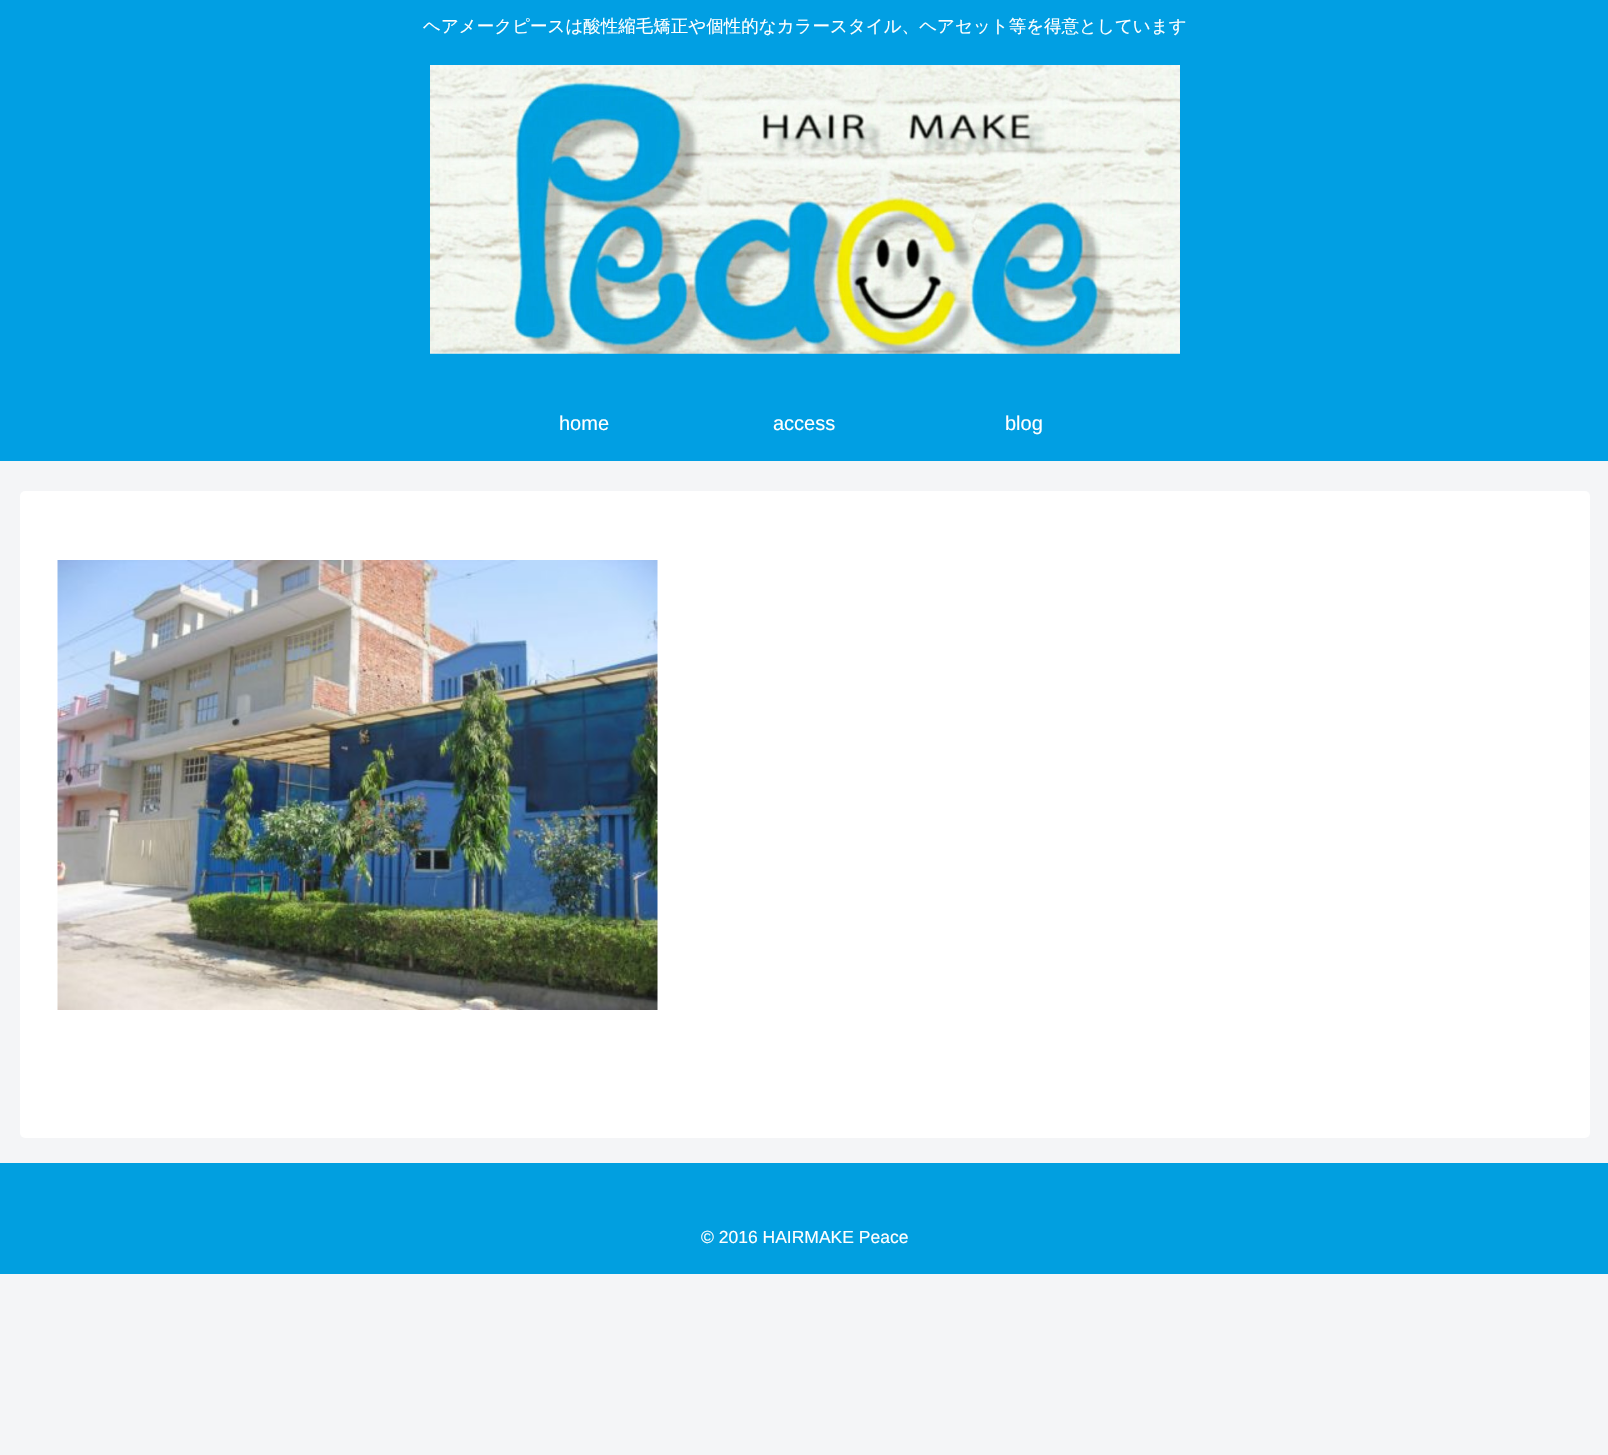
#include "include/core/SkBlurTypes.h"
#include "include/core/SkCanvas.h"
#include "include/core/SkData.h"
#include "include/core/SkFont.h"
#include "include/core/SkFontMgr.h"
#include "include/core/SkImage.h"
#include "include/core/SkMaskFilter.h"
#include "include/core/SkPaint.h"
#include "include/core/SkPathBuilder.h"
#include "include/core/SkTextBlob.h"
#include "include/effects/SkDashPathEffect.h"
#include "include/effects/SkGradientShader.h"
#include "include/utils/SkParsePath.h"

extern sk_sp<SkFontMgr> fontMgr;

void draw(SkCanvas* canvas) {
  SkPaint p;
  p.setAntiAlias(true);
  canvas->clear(SkColorSetRGB(244, 245, 247));
  p.setColor(SkColorSetRGB(1, 159, 227));
  canvas->drawRect(SkRect::MakeLTRB(0, 0, 1608, 461), p);
  canvas->drawImageRect(SkImages::DeferredFromEncodedData(SkData::MakeFromFileName("images/1.png")), SkRect::MakeLTRB(430, 65, 1180, 354), SkSamplingOptions());
  p.setColor(SK_ColorWHITE);
  canvas->drawRoundRect(SkRect::MakeLTRB(20, 491, 1590, 1138), 5, 5, p);
  canvas->drawImageRect(SkImages::DeferredFromEncodedData(SkData::MakeFromFileName("images/2.png")), SkRect::MakeLTRB(57, 560, 658, 1010), SkSamplingOptions());
  p.setColor(SkColorSetRGB(1, 159, 224));
  canvas->drawRect(SkRect::MakeLTRB(0, 1163, 1608, 1274), p);
  SkFont font1(fontMgr->matchFamilyStyle("WenQuanYi Zen Hei", SkFontStyle(500, SkFontStyle::kNormal_Width, SkFontStyle::kUpright_Slant)), 17.5f);
  font1.setSubpixel(true);
  p.setColor(SK_ColorWHITE);
  canvas->drawString("ヘアメークピースは酸性縮毛矯正や個性的なカラースタイル、ヘアセット等を得意としています", 423, 32, font1, p);
  SkFont font2(fontMgr->matchFamilyStyle("Liberation Sans", SkFontStyle::Normal()), 20);
  font2.setSubpixel(true);
  canvas->drawString("home", 559, 430, font2, p);
  canvas->drawString("access", 773, 430, font2, p);
  canvas->drawString("blog", 1005, 430, font2, p);
  SkFont font3(fontMgr->matchFamilyStyle("Liberation Sans", SkFontStyle::Normal()), 17.5f);
  font3.setSubpixel(true);
  canvas->drawString("© 2016 HAIRMAKE Peace", 701, 1243, font3, p);
}
